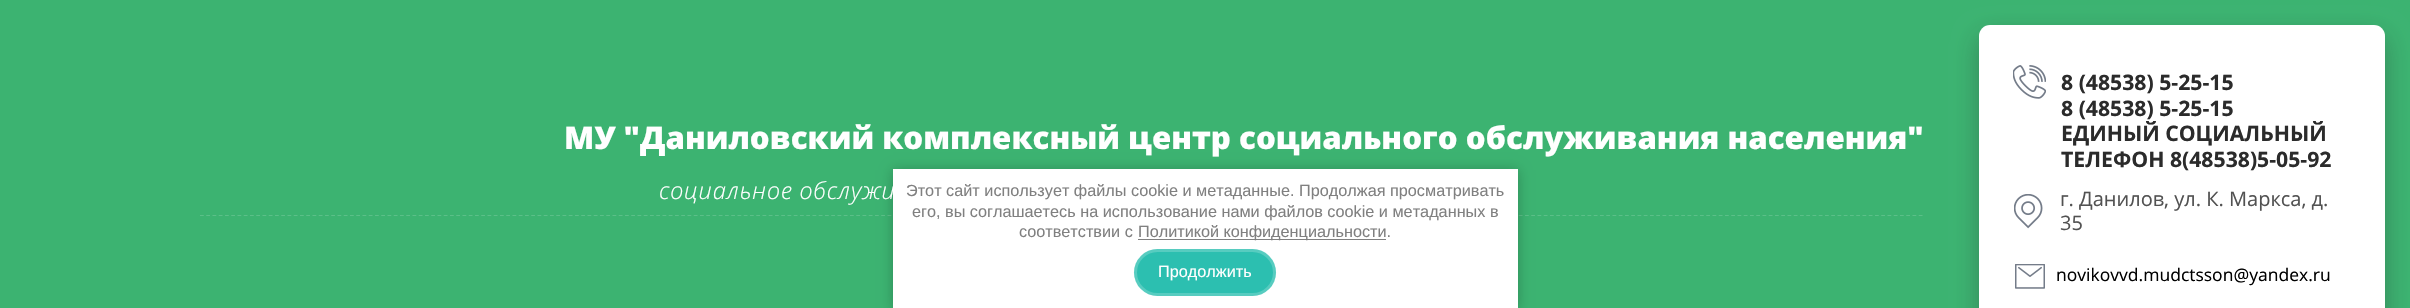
#include "include/core/SkBlurTypes.h"
#include "include/core/SkCanvas.h"
#include "include/core/SkData.h"
#include "include/core/SkFont.h"
#include "include/core/SkFontMgr.h"
#include "include/core/SkImage.h"
#include "include/core/SkMaskFilter.h"
#include "include/core/SkPaint.h"
#include "include/core/SkPathBuilder.h"
#include "include/core/SkTextBlob.h"
#include "include/effects/SkDashPathEffect.h"
#include "include/effects/SkGradientShader.h"
#include "include/utils/SkParsePath.h"

extern sk_sp<SkFontMgr> fontMgr;

void draw(SkCanvas* canvas) {
  SkPaint p;
  p.setAntiAlias(true);
  auto spacedText = [&](const char* s, float x, float y, const SkFont& font, const SkPaint& ink, float letter, float word) {
    std::vector<SkGlyphID> glyphs(font.countText(s, strlen(s), SkTextEncoding::kUTF8));
    std::vector<float> xs(glyphs.size());
    font.textToGlyphs(s, strlen(s), SkTextEncoding::kUTF8, glyphs);
    font.getXPos(glyphs, xs, x);
    float extra = 0;
    for (size_t i = 0; i < glyphs.size(); i++) {
      xs[i] += extra;
      extra += letter + word * (glyphs[i] == font.unicharToGlyph(' '));
    }
    canvas->drawTextBlob(SkTextBlob::MakeFromPosHGlyphs(glyphs, xs, y, font), 0, 0, ink);
  };
  canvas->clear(SkColorSetRGB(60, 179, 113));
  p.setStyle(SkPaint::kStroke_Style);
  p.setStrokeWidth(1.2f);
  p.setColor(SkColorSetRGB(91, 191, 136));
  p.setPathEffect(SkDashPathEffect::Make({{3.75f, 2.5f}}, 0));
  canvas->drawPath(SkPathBuilder().moveTo(200, 215.5f).lineTo(1924, 215.5f).detach(), p);
  p.setPathEffect(nullptr);
  p.setStyle(SkPaint::kFill_Style);
  p.setColor(SkColorSetARGB(82, 36, 36, 36));
  p.setMaskFilter(SkMaskFilter::MakeBlur(kNormal_SkBlurStyle, 13));
  canvas->drawRoundRect(SkRect::MakeLTRB(1979, 36, 2385, 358), 11, 11, p);
  p.setMaskFilter(nullptr);
  p.setColor(SK_ColorWHITE);
  canvas->drawRoundRect(SkRect::MakeLTRB(1979, 25, 2385, 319), 11, 11, p);
  canvas->drawImageRect(SkImages::DeferredFromEncodedData(SkData::MakeFromFileName("images/1.png")), SkRect::MakeLTRB(2013, 65, 2046, 99), SkSamplingOptions());
  canvas->drawImageRect(SkImages::DeferredFromEncodedData(SkData::MakeFromFileName("images/2.png")), SkRect::MakeLTRB(2014, 194, 2043, 229), SkSamplingOptions());
  canvas->drawImageRect(SkImages::DeferredFromEncodedData(SkData::MakeFromFileName("images/3.png")), SkRect::MakeLTRB(2015, 264, 2045, 289), SkSamplingOptions());
  p.setColor(SkColorSetARGB(59, 0, 0, 0));
  p.setMaskFilter(SkMaskFilter::MakeBlur(kNormal_SkBlurStyle, 6));
  canvas->drawRect(SkRect::MakeLTRB(893, 170, 1518, 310), p);
  p.setMaskFilter(nullptr);
  p.setColor(SK_ColorWHITE);
  canvas->drawRect(SkRect::MakeLTRB(893, 169, 1518, 308), p);
  p.setColor(SkColorSetRGB(128, 128, 128));
  canvas->drawRect(SkRect::MakeLTRB(1138, 239, 1386, 240), p);
  p.setColor(SkColorSetRGB(44, 191, 176));
  canvas->drawRoundRect(SkRect::MakeLTRB(1134, 249, 1276, 296), 23.5f, 23.5f, p);
  p.setStyle(SkPaint::kStroke_Style);
  p.setStrokeWidth(3);
  p.setColor(SkColorSetARGB(51, 255, 255, 255));
  canvas->drawRoundRect(SkRect::MakeLTRB(1135.5f, 250.5f, 1274.5f, 294.5f), 22, 22, p);
  SkFont font1(fontMgr->matchFamilyStyle("Open Sans", SkFontStyle(800, SkFontStyle::kNormal_Width, SkFontStyle::kUpright_Slant)), 31.25f);
  font1.setSubpixel(true);
  p.setStyle(SkPaint::kFill_Style);
  p.setColor(SK_ColorWHITE);
  canvas->drawString("МУ \"Даниловский комплексный центр социального обслуживания населения\"", 564, 149, font1, p);
  SkFont font2(fontMgr->matchFamilyStyle("Open Sans", SkFontStyle(300, SkFontStyle::kNormal_Width, SkFontStyle::kItalic_Slant)), 23.75f);
  font2.setSubpixel(true);
  spacedText("социальное обслужи", 659, 199, font2, p, 0.9f, 0);
  SkFont font3(fontMgr->matchFamilyStyle("Open Sans", SkFontStyle::Bold()), 21.25f);
  font3.setSubpixel(true);
  p.setColor(SkColorSetRGB(43, 43, 43));
  canvas->drawString("8 (48538) 5-25-15", 2061, 90, font3, p);
  canvas->drawString("8 (48538) 5-25-15", 2061, 116, font3, p);
  canvas->drawString("ЕДИНЫЙ СОЦИАЛЬНЫЙ", 2061, 141, font3, p);
  canvas->drawString("ТЕЛЕФОН 8(48538)5-05-92", 2061, 167, font3, p);
  SkFont font4(fontMgr->matchFamilyStyle("Open Sans", SkFontStyle::Normal()), 20);
  font4.setSubpixel(true);
  p.setColor(SkColorSetRGB(82, 82, 82));
  canvas->drawString("г. Данилов, ул. К. Маркса, д.", 2060, 206, font4, p);
  canvas->drawString("35", 2060, 230, font4, p);
  SkFont font5(fontMgr->matchFamilyStyle("Open Sans", SkFontStyle::Normal()), 17.5f);
  font5.setSubpixel(true);
  p.setColor(SK_ColorBLACK);
  canvas->drawString("novikovvd.mudctsson@yandex.ru", 2056, 281, font5, p);
  SkFont font6(fontMgr->matchFamilyStyle("Liberation Sans", SkFontStyle::Normal()), 16.25f);
  font6.setSubpixel(true);
  p.setColor(SkColorSetRGB(128, 128, 128));
  canvas->drawString("Этот сайт использует файлы cookie и метаданные. Продолжая просматривать", 906, 196, font6, p);
  canvas->drawString("его, вы соглашаетесь на использование нами файлов cookie и метаданных в", 912, 217, font6, p);
  canvas->drawString("соответствии с", 1019, 237, font6, p);
  canvas->drawString("Политикой конфиденциальности.", 1138, 237, font6, p);
  p.setColor(SK_ColorWHITE);
  canvas->drawString("Продолжить", 1158, 277, font6, p);
}
